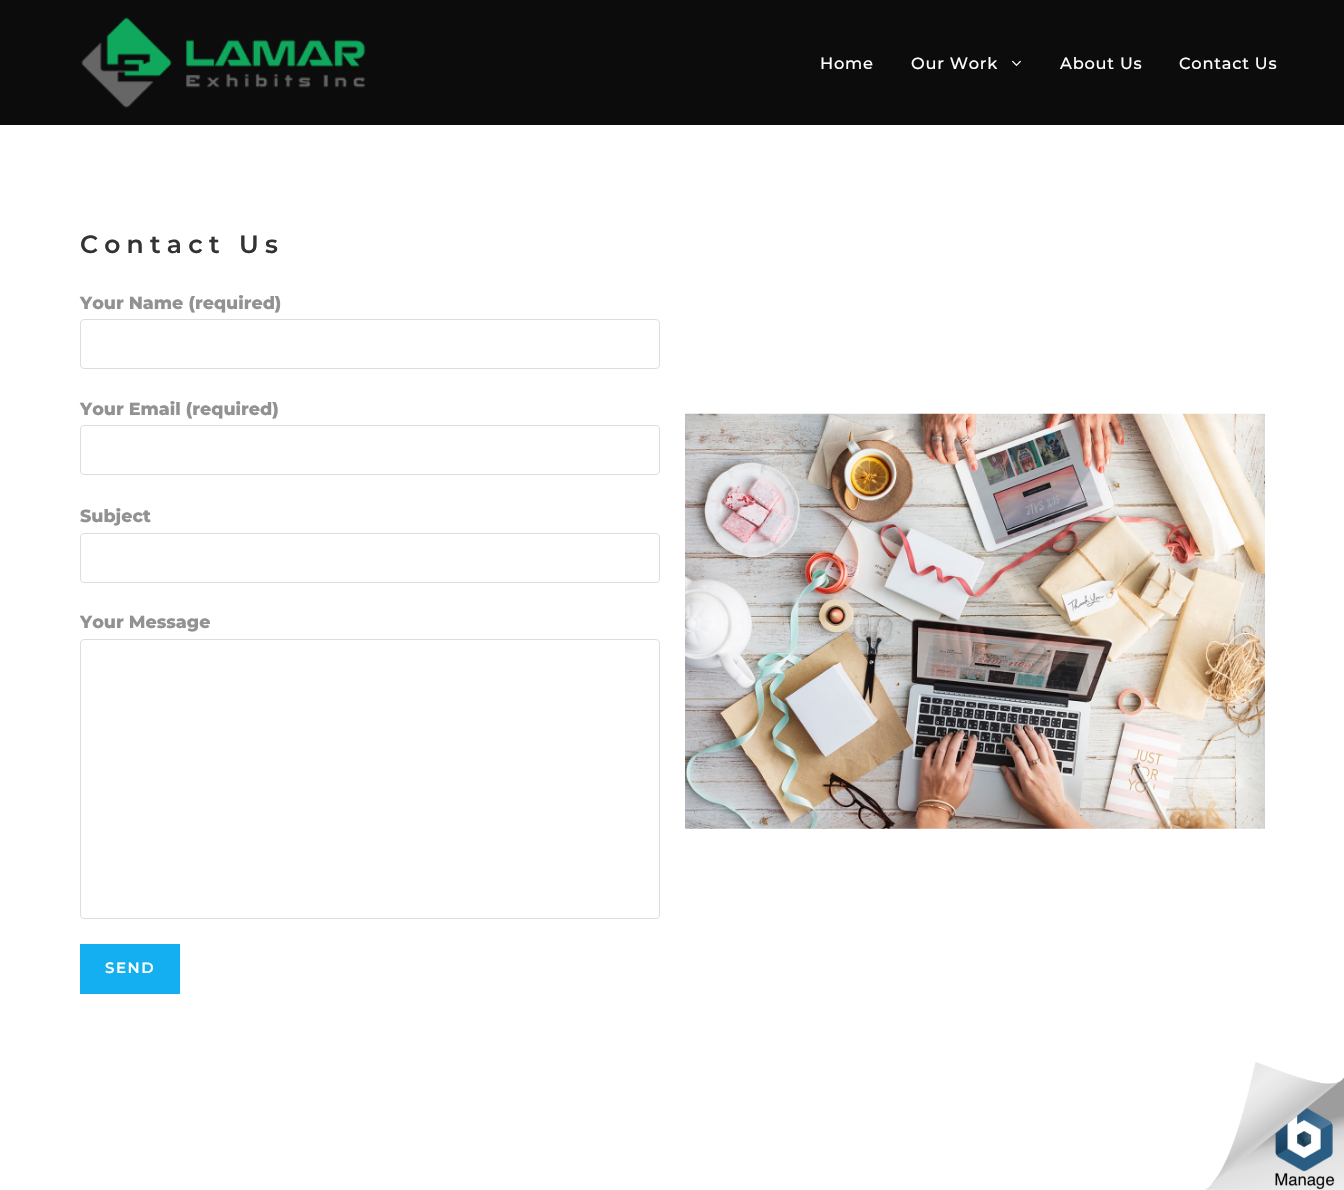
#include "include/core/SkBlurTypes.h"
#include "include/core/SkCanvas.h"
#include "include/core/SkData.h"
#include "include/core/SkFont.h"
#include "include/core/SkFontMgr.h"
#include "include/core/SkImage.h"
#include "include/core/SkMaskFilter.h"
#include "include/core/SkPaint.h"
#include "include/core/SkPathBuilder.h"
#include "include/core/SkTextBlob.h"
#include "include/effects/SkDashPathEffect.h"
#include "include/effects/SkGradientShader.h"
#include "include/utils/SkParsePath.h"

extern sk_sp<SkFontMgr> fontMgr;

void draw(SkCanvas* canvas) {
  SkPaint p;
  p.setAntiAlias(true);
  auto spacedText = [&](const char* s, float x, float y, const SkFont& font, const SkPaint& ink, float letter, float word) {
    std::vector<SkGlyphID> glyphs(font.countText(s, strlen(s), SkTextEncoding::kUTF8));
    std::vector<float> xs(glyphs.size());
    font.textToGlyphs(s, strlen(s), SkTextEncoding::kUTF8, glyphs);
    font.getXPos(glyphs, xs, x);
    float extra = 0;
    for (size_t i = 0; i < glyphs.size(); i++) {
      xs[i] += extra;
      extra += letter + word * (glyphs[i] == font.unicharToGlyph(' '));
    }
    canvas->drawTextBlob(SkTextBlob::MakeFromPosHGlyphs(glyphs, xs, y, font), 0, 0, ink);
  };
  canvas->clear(SK_ColorWHITE);
  p.setColor(SkColorSetRGB(12, 12, 12));
  canvas->drawRect(SkRect::MakeLTRB(0, 0, 1344, 125), p);
  canvas->drawImageRect(SkImages::DeferredFromEncodedData(SkData::MakeFromFileName("images/1.png")), SkRect::MakeLTRB(81, 17, 366, 108), SkSamplingOptions());
  canvas->drawImageRect(SkImages::DeferredFromEncodedData(SkData::MakeFromFileName("images/2.png")), SkRect::MakeLTRB(1012, 60, 1021, 66), SkSamplingOptions());
  p.setStyle(SkPaint::kStroke_Style);
  p.setStrokeWidth(1);
  p.setColor(SkColorSetRGB(221, 221, 221));
  canvas->drawRoundRect(SkRect::MakeLTRB(80.5f, 319.5f, 659.5f, 368.5f), 3.5f, 3.5f, p);
  canvas->drawRoundRect(SkRect::MakeLTRB(80.5f, 425.5f, 659.5f, 474.5f), 3.5f, 3.5f, p);
  canvas->drawRoundRect(SkRect::MakeLTRB(80.5f, 533.5f, 659.5f, 582.5f), 3.5f, 3.5f, p);
  canvas->drawRoundRect(SkRect::MakeLTRB(80.5f, 639.5f, 659.5f, 918.5f), 3.5f, 3.5f, p);
  p.setStyle(SkPaint::kFill_Style);
  p.setColor(SkColorSetRGB(19, 175, 240));
  canvas->drawRect(SkRect::MakeLTRB(80, 944, 180, 994), p);
  canvas->drawImageRect(SkImages::DeferredFromEncodedData(SkData::MakeFromFileName("images/3.png")), SkRect::MakeLTRB(685, 413, 1265, 829), SkSamplingOptions());
  canvas->drawImageRect(SkImages::DeferredFromEncodedData(SkData::MakeFromFileName("images/4.png")), SkRect::MakeLTRB(1205, 1062, 1344, 1190), SkSamplingOptions());
  SkFont font1(fontMgr->matchFamilyStyle("Montserrat", SkFontStyle(500, SkFontStyle::kNormal_Width, SkFontStyle::kUpright_Slant)), 16.25f);
  font1.setSubpixel(true);
  p.setColor(SK_ColorWHITE);
  spacedText("Home", 820, 69, font1, p, 0.75f, 0);
  spacedText("Our Work", 911, 69, font1, p, 0.75f, 0);
  spacedText("About Us", 1060, 69, font1, p, 0.75f, 0);
  spacedText("Contact Us", 1179, 69, font1, p, 0.75f, 0);
  SkFont font2(fontMgr->matchFamilyStyle("Montserrat", SkFontStyle(600, SkFontStyle::kNormal_Width, SkFontStyle::kUpright_Slant)), 25);
  font2.setSubpixel(true);
  p.setColor(SkColorSetRGB(51, 51, 51));
  spacedText("Contact Us", 80, 253, font2, p, 6.25f, 0);
  SkFont font3(fontMgr->matchFamilyStyle("Montserrat", SkFontStyle(800, SkFontStyle::kNormal_Width, SkFontStyle::kUpright_Slant)), 17.5f);
  font3.setSubpixel(true);
  p.setColor(SkColorSetRGB(146, 146, 146));
  canvas->drawString("Your Name (required)", 80, 309, font3, p);
  canvas->drawString("Your Email (required)", 80, 415, font3, p);
  canvas->drawString("Subject", 80, 522, font3, p);
  canvas->drawString("Your Message", 80, 628, font3, p);
  SkFont font4(fontMgr->matchFamilyStyle("Montserrat", SkFontStyle(600, SkFontStyle::kNormal_Width, SkFontStyle::kUpright_Slant)), 15);
  font4.setSubpixel(true);
  p.setColor(SK_ColorWHITE);
  spacedText("SEND", 105, 973, font4, p, 1.5f, 0);
}
